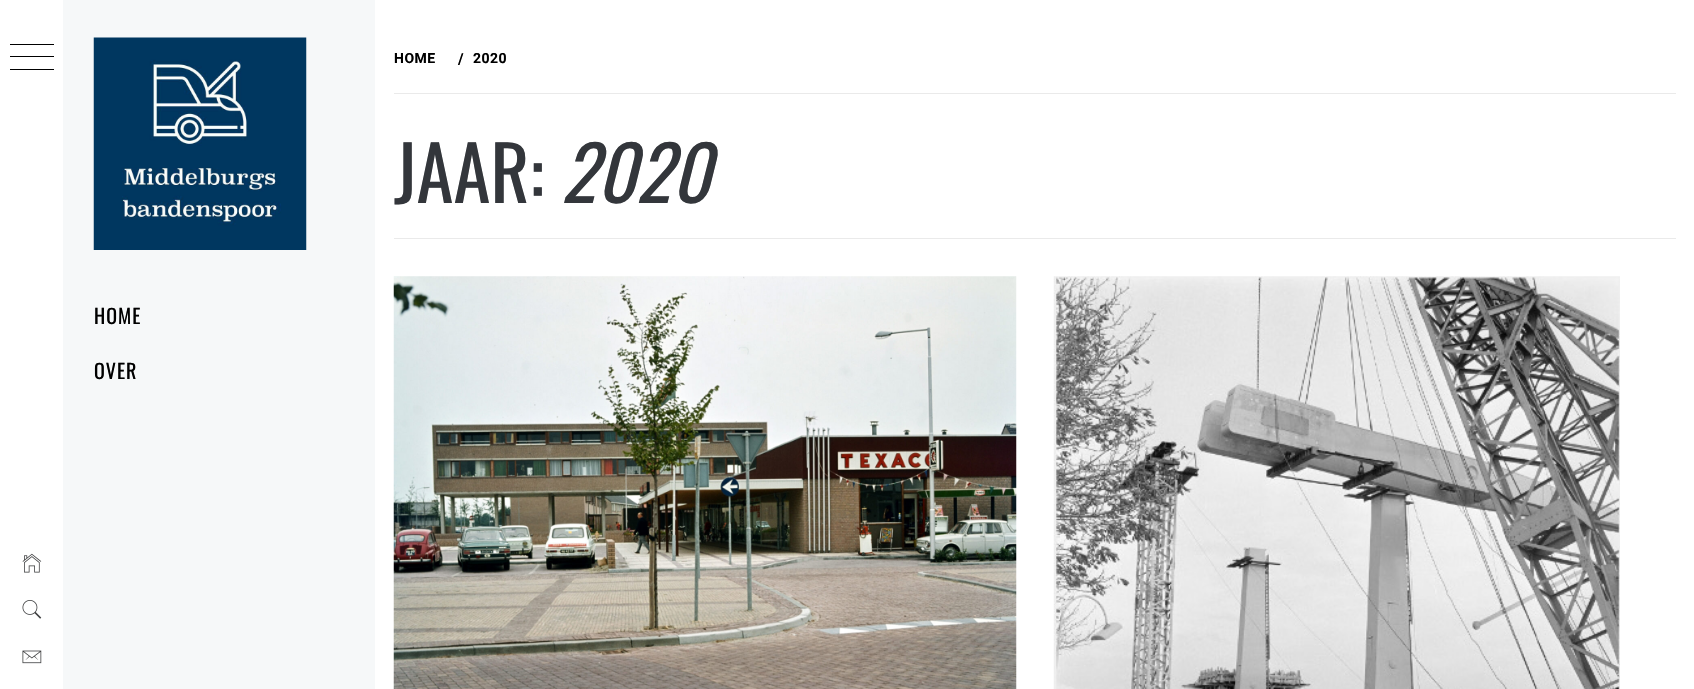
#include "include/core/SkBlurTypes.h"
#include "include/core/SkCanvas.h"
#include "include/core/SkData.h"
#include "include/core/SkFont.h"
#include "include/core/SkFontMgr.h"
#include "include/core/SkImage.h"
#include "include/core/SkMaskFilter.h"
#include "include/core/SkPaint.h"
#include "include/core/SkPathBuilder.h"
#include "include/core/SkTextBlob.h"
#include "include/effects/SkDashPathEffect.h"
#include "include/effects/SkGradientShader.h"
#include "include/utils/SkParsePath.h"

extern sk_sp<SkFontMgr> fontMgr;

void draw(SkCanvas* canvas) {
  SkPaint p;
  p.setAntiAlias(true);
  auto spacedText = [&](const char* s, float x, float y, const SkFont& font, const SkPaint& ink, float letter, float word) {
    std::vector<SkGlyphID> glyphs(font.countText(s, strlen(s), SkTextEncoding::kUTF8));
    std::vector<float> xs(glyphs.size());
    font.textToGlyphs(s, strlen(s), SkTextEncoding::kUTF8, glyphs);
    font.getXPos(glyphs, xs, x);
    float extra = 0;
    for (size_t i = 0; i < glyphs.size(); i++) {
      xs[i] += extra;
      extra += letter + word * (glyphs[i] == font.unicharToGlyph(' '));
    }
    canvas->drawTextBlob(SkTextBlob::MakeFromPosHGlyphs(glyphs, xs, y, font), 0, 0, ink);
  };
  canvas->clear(SK_ColorWHITE);
  p.setColor(SkColorSetRGB(234, 234, 234));
  canvas->drawRect(SkRect::MakeLTRB(394, 238, 1676, 239), p);
  canvas->drawRect(SkRect::MakeLTRB(394, 93, 1676, 94), p);
  canvas->drawImageRect(SkImages::DeferredFromEncodedData(SkData::MakeFromFileName("images/1.png")), SkRect::MakeLTRB(393, 276, 1017, 689), SkSamplingOptions());
  canvas->drawImageRect(SkImages::DeferredFromEncodedData(SkData::MakeFromFileName("images/2.png")), SkRect::MakeLTRB(1053, 276, 1620, 689), SkSamplingOptions());
  p.setColor(SK_ColorBLACK);
  canvas->drawRect(SkRect::MakeLTRB(10, 44, 54, 45), p);
  canvas->drawRect(SkRect::MakeLTRB(10, 56, 54, 57), p);
  canvas->drawRect(SkRect::MakeLTRB(10, 69, 54, 70), p);
  canvas->drawImageRect(SkImages::DeferredFromEncodedData(SkData::MakeFromFileName("images/3.png")), SkRect::MakeLTRB(22, 553, 42, 573), SkSamplingOptions());
  canvas->drawImageRect(SkImages::DeferredFromEncodedData(SkData::MakeFromFileName("images/4.png")), SkRect::MakeLTRB(22, 600, 42, 619), SkSamplingOptions());
  canvas->drawImageRect(SkImages::DeferredFromEncodedData(SkData::MakeFromFileName("images/5.png")), SkRect::MakeLTRB(22, 650, 42, 664), SkSamplingOptions());
  p.setColor(SkColorSetRGB(246, 248, 249));
  canvas->drawRect(SkRect::MakeLTRB(63, 0, 375, 689), p);
  canvas->drawImageRect(SkImages::DeferredFromEncodedData(SkData::MakeFromFileName("images/6.png")), SkRect::MakeLTRB(93, 37, 307, 250), SkSamplingOptions());
  SkFont font1(fontMgr->matchFamilyStyle("Roboto", SkFontStyle::Bold()), 14);
  font1.setSubpixel(true);
  p.setColor(SK_ColorBLACK);
  spacedText("HOME", 394, 63, font1, p, 0.5f, 0);
  SkFont font2(fontMgr->matchFamilyStyle("Roboto", SkFontStyle::Bold()), 15);
  font2.setSubpixel(true);
  spacedText("/", 458, 64, font2, p, 0.5f, 0);
  spacedText("2020", 473, 63, font1, p, 0.5f, 0);
  SkFont font3(fontMgr->matchFamilyStyle("Oswald", SkFontStyle::Normal()), 75);
  font3.setSubpixel(true);
  p.setColor(SkColorSetRGB(51, 54, 59));
  canvas->drawString("JAAR:", 394, 203, font3, p);
  SkFont font4(fontMgr->matchFamilyStyle("Oswald", SkFontStyle::Italic()), 75);
  font4.setSubpixel(true);
  canvas->drawString("2020", 561, 203, font4, p);
  SkFont font5(fontMgr->matchFamilyStyle("Oswald", SkFontStyle::Normal()), 20);
  font5.setSubpixel(true);
  p.setColor(SK_ColorBLACK);
  spacedText("HOME", 94, 324, font5, p, 1, 0);
  spacedText("OVER", 94, 379, font5, p, 1, 0);
}
